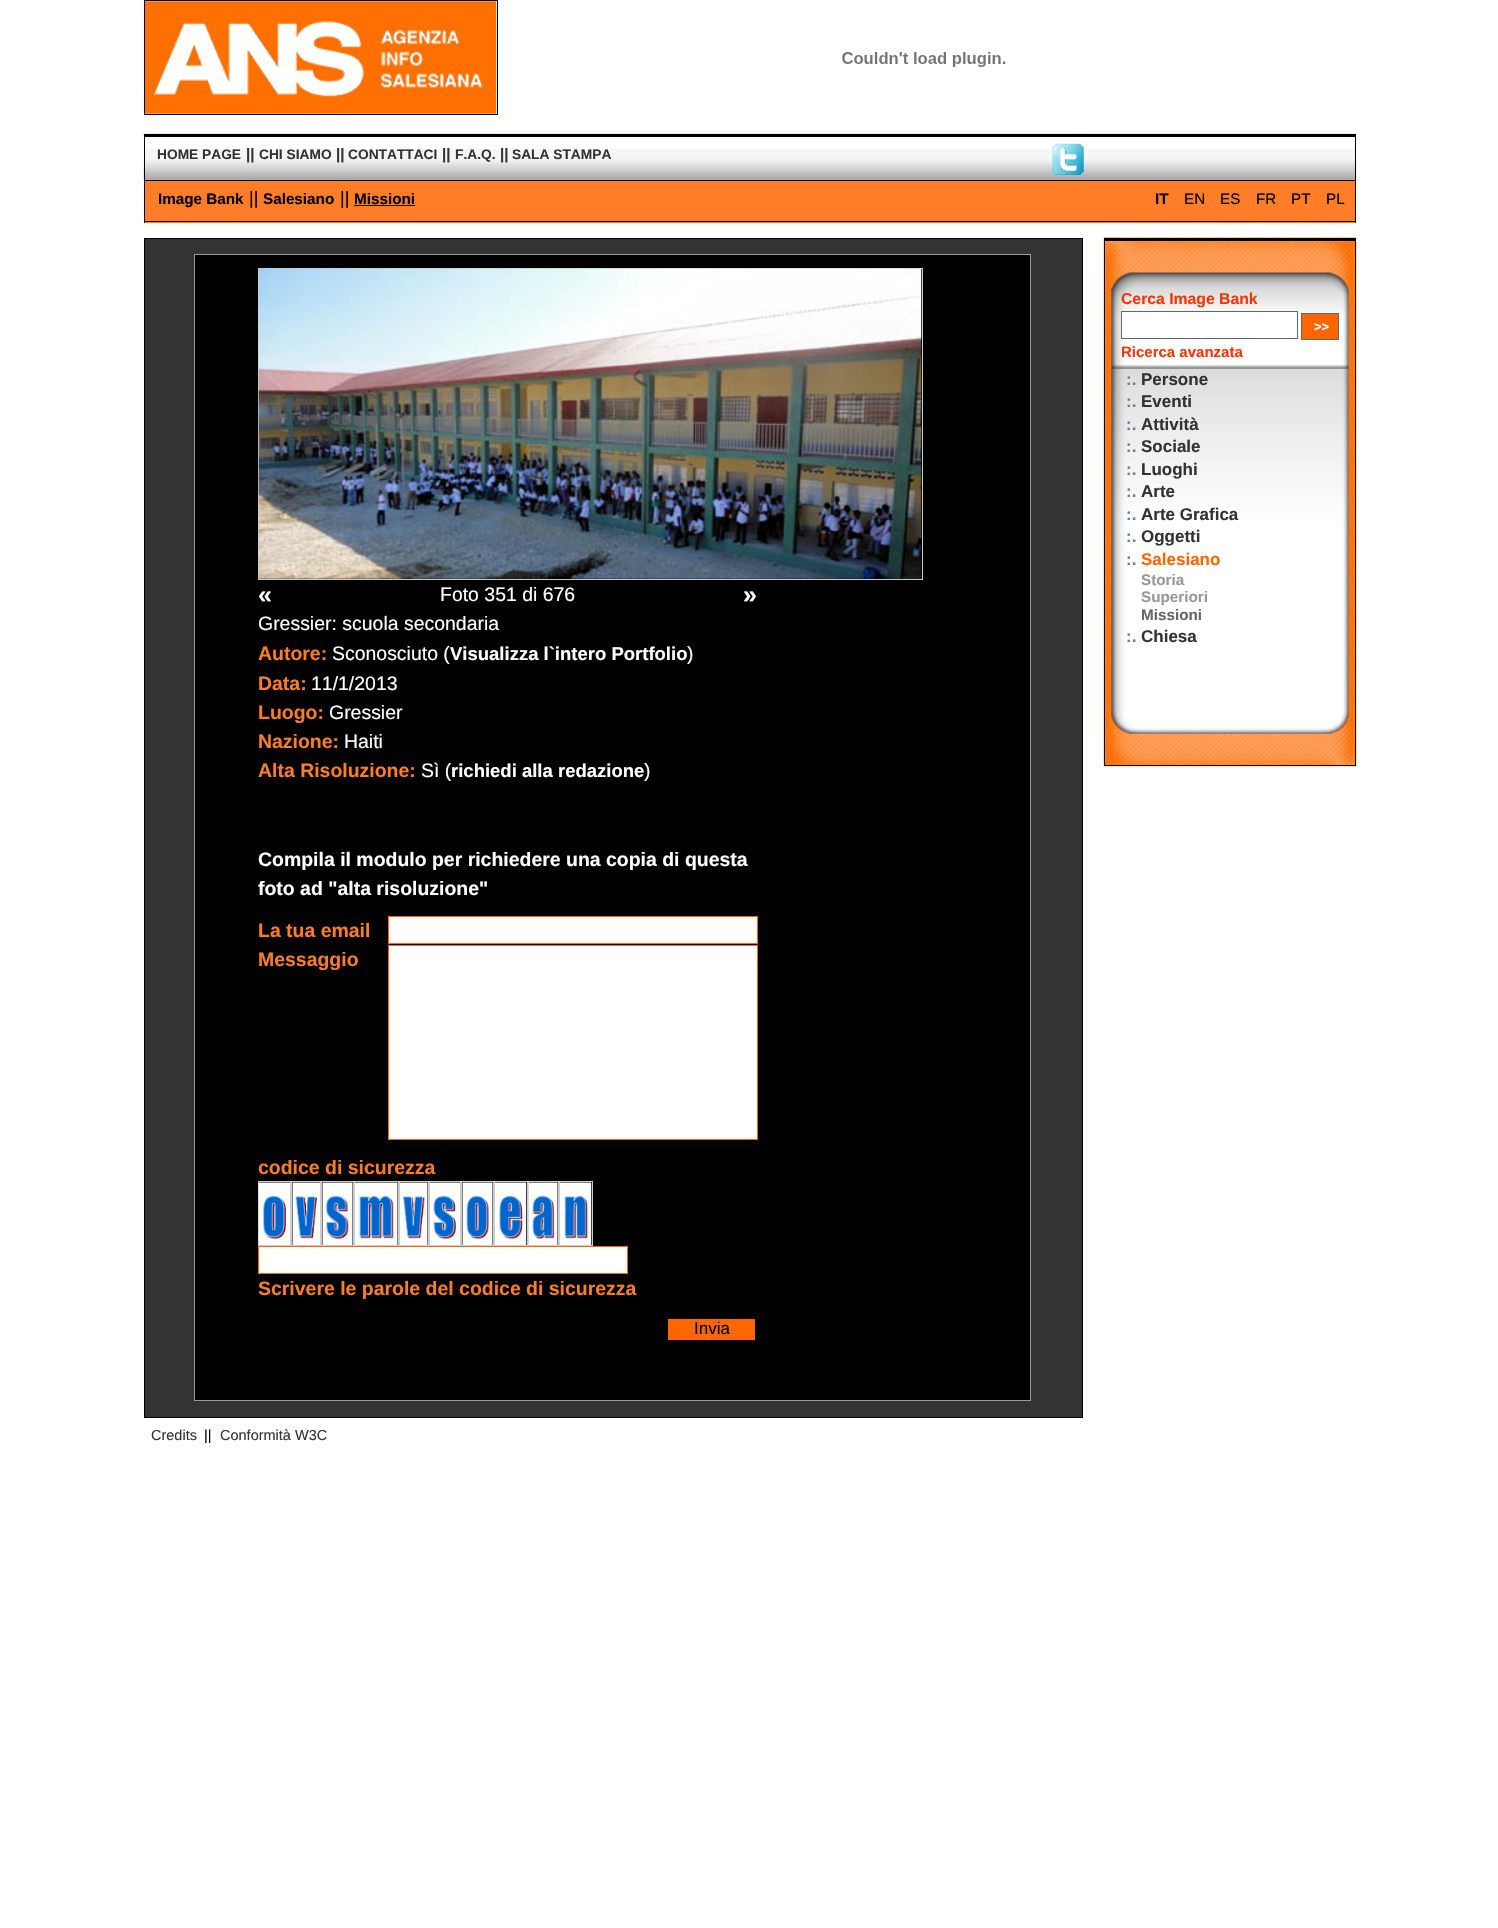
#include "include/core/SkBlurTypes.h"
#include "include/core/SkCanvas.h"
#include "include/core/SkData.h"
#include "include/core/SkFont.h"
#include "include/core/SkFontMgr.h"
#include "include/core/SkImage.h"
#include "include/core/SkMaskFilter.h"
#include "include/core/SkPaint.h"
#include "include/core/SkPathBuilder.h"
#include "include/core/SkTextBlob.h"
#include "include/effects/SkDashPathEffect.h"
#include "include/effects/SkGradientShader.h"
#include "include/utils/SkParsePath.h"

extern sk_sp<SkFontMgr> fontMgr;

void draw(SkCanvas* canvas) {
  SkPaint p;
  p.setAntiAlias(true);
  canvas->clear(SK_ColorWHITE);
  p.setStyle(SkPaint::kStroke_Style);
  p.setStrokeWidth(1);
  p.setColor(SK_ColorBLACK);
  canvas->drawRect(SkRect::MakeLTRB(144.5f, 0.5f, 497.5f, 114.5f), p);
  canvas->drawImageRect(SkImages::DeferredFromEncodedData(SkData::MakeFromFileName("images/1.png")), SkRect::MakeLTRB(145, 1, 497, 114), SkSamplingOptions());
  canvas->drawImageRect(SkImages::DeferredFromEncodedData(SkData::MakeFromFileName("images/2.png")), SkRect::MakeLTRB(842, 52, 1006, 67), SkSamplingOptions());
  canvas->drawImageRect(SkImages::DeferredFromEncodedData(SkData::MakeFromFileName("images/3.png")), SkRect::MakeLTRB(143, 133, 1357, 181), SkSamplingOptions());
  p.setStyle(SkPaint::kFill_Style);
  canvas->drawRect(SkRect::MakeLTRB(144, 134, 1356, 137), p);
  canvas->drawRect(SkRect::MakeLTRB(1355, 134, 1356, 223), p);
  canvas->drawRect(SkRect::MakeLTRB(144, 180, 1356, 181), p);
  canvas->drawRect(SkRect::MakeLTRB(144, 134, 145, 181), p);
  canvas->drawImageRect(SkImages::DeferredFromEncodedData(SkData::MakeFromFileName("images/4.png")), SkRect::MakeLTRB(1052, 143, 1084, 175), SkSamplingOptions());
  p.setColor(SkColorSetRGB(255, 125, 39));
  canvas->drawRect(SkRect::MakeLTRB(145, 181, 1355, 223), p);
  p.setColor(SK_ColorBLACK);
  canvas->drawRect(SkRect::MakeLTRB(144, 221, 1356, 222), p);
  canvas->drawRect(SkRect::MakeLTRB(144, 181, 145, 223), p);
  canvas->drawRect(SkRect::MakeLTRB(354, 205, 415, 206), p);
  canvas->drawImageRect(SkImages::DeferredFromEncodedData(SkData::MakeFromFileName("images/5.png")), SkRect::MakeLTRB(1103, 237, 1357, 767), SkSamplingOptions());
  canvas->drawRect(SkRect::MakeLTRB(1104, 238, 1356, 241), p);
  canvas->drawRect(SkRect::MakeLTRB(1355, 238, 1356, 766), p);
  canvas->drawRect(SkRect::MakeLTRB(1104, 765, 1356, 766), p);
  canvas->drawRect(SkRect::MakeLTRB(1104, 238, 1105, 766), p);
  p.setColor(SK_ColorWHITE);
  canvas->drawRect(SkRect::MakeLTRB(1121.5f, 311.5f, 1297.5f, 338.5f), p);
  p.setStyle(SkPaint::kStroke_Style);
  p.setColor(SkColorSetRGB(102, 102, 102));
  canvas->drawRect(SkRect::MakeLTRB(1121.5f, 311.5f, 1297.5f, 338.5f), p);
  p.setStyle(SkPaint::kFill_Style);
  p.setColor(SkColorSetRGB(255, 102, 0));
  canvas->drawRect(SkRect::MakeLTRB(1301.5f, 313.5f, 1338.5f, 339.5f), p);
  p.setStyle(SkPaint::kStroke_Style);
  p.setColor(SkColorSetRGB(102, 102, 102));
  canvas->drawRect(SkRect::MakeLTRB(1301.5f, 313.5f, 1338.5f, 339.5f), p);
  p.setStyle(SkPaint::kFill_Style);
  p.setColor(SkColorSetRGB(51, 51, 51));
  canvas->drawRect(SkRect::MakeLTRB(144.5f, 238.5f, 1082.5f, 1417.5f), p);
  p.setStyle(SkPaint::kStroke_Style);
  p.setColor(SK_ColorBLACK);
  canvas->drawRect(SkRect::MakeLTRB(144.5f, 238.5f, 1082.5f, 1417.5f), p);
  p.setStyle(SkPaint::kFill_Style);
  canvas->drawRect(SkRect::MakeLTRB(194.5f, 254.5f, 1030.5f, 1400.5f), p);
  p.setStyle(SkPaint::kStroke_Style);
  p.setColor(SkColorSetRGB(153, 153, 153));
  canvas->drawRect(SkRect::MakeLTRB(194.5f, 254.5f, 1030.5f, 1400.5f), p);
  p.setColor(SkColorSetRGB(204, 204, 204));
  canvas->drawRect(SkRect::MakeLTRB(258.5f, 268.5f, 922.5f, 579.5f), p);
  canvas->drawImageRect(SkImages::DeferredFromEncodedData(SkData::MakeFromFileName("images/6.png")), SkRect::MakeLTRB(258, 268, 922, 579), SkSamplingOptions());
  p.setStyle(SkPaint::kFill_Style);
  p.setColor(SK_ColorWHITE);
  canvas->drawRect(SkRect::MakeLTRB(388.5f, 916.5f, 757.5f, 943.5f), p);
  p.setStyle(SkPaint::kStroke_Style);
  p.setColor(SkColorSetRGB(255, 102, 0));
  canvas->drawRect(SkRect::MakeLTRB(388.5f, 916.5f, 757.5f, 943.5f), p);
  p.setStyle(SkPaint::kFill_Style);
  p.setColor(SK_ColorWHITE);
  canvas->drawRect(SkRect::MakeLTRB(388.5f, 945.5f, 757.5f, 1139.5f), p);
  p.setStyle(SkPaint::kStroke_Style);
  p.setColor(SkColorSetRGB(255, 102, 0));
  canvas->drawRect(SkRect::MakeLTRB(388.5f, 945.5f, 757.5f, 1139.5f), p);
  p.setColor(SkColorSetRGB(204, 204, 204));
  canvas->drawRect(SkRect::MakeLTRB(258.5f, 1181.5f, 290.5f, 1245.5f), p);
  canvas->drawRect(SkRect::MakeLTRB(291.5f, 1181.5f, 320.5f, 1245.5f), p);
  canvas->drawRect(SkRect::MakeLTRB(321.5f, 1181.5f, 353.5f, 1245.5f), p);
  canvas->drawRect(SkRect::MakeLTRB(354.5f, 1181.5f, 398.5f, 1245.5f), p);
  canvas->drawRect(SkRect::MakeLTRB(399.5f, 1181.5f, 428.5f, 1245.5f), p);
  canvas->drawRect(SkRect::MakeLTRB(429.5f, 1181.5f, 460.5f, 1245.5f), p);
  canvas->drawRect(SkRect::MakeLTRB(461.5f, 1181.5f, 493.5f, 1245.5f), p);
  canvas->drawRect(SkRect::MakeLTRB(494.5f, 1181.5f, 527.5f, 1245.5f), p);
  canvas->drawRect(SkRect::MakeLTRB(528.5f, 1181.5f, 558.5f, 1245.5f), p);
  canvas->drawRect(SkRect::MakeLTRB(559.5f, 1181.5f, 592.5f, 1245.5f), p);
  canvas->drawImageRect(SkImages::DeferredFromEncodedData(SkData::MakeFromFileName("images/7.png")), SkRect::MakeLTRB(258, 1182, 290, 1245), SkSamplingOptions());
  canvas->drawImageRect(SkImages::DeferredFromEncodedData(SkData::MakeFromFileName("images/8.png")), SkRect::MakeLTRB(292, 1182, 320, 1245), SkSamplingOptions());
  canvas->drawImageRect(SkImages::DeferredFromEncodedData(SkData::MakeFromFileName("images/9.png")), SkRect::MakeLTRB(322, 1182, 353, 1245), SkSamplingOptions());
  canvas->drawImageRect(SkImages::DeferredFromEncodedData(SkData::MakeFromFileName("images/10.png")), SkRect::MakeLTRB(355, 1182, 398, 1245), SkSamplingOptions());
  canvas->drawImageRect(SkImages::DeferredFromEncodedData(SkData::MakeFromFileName("images/11.png")), SkRect::MakeLTRB(400, 1182, 428, 1245), SkSamplingOptions());
  canvas->drawImageRect(SkImages::DeferredFromEncodedData(SkData::MakeFromFileName("images/12.png")), SkRect::MakeLTRB(430, 1182, 460, 1245), SkSamplingOptions());
  canvas->drawImageRect(SkImages::DeferredFromEncodedData(SkData::MakeFromFileName("images/13.png")), SkRect::MakeLTRB(462, 1182, 493, 1245), SkSamplingOptions());
  canvas->drawImageRect(SkImages::DeferredFromEncodedData(SkData::MakeFromFileName("images/14.png")), SkRect::MakeLTRB(495, 1182, 527, 1245), SkSamplingOptions());
  canvas->drawImageRect(SkImages::DeferredFromEncodedData(SkData::MakeFromFileName("images/15.png")), SkRect::MakeLTRB(528, 1182, 558, 1245), SkSamplingOptions());
  canvas->drawImageRect(SkImages::DeferredFromEncodedData(SkData::MakeFromFileName("images/16.png")), SkRect::MakeLTRB(560, 1182, 592, 1245), SkSamplingOptions());
  p.setStyle(SkPaint::kFill_Style);
  p.setColor(SK_ColorWHITE);
  canvas->drawRect(SkRect::MakeLTRB(258.5f, 1246.5f, 627.5f, 1273.5f), p);
  p.setStyle(SkPaint::kStroke_Style);
  p.setColor(SkColorSetRGB(255, 102, 0));
  canvas->drawRect(SkRect::MakeLTRB(258.5f, 1246.5f, 627.5f, 1273.5f), p);
  p.setStyle(SkPaint::kFill_Style);
  canvas->drawRect(SkRect::MakeLTRB(668, 1319, 755, 1340), p);
  SkFont font1(fontMgr->matchFamilyStyle("Liberation Sans", SkFontStyle::Bold()), 13.75f);
  font1.setSubpixel(true);
  p.setColor(SkColorSetRGB(51, 51, 51));
  canvas->drawString("HOME PAGE", 157, 159, font1, p);
  SkFont font2(fontMgr->matchFamilyStyle("Liberation Sans", SkFontStyle::Bold()), 15.25f);
  font2.setSubpixel(true);
  canvas->drawString("||", 246, 159, font2, p);
  canvas->drawString("CHI SIAMO", 259, 159, font1, p);
  canvas->drawString("||", 336, 159, font2, p);
  canvas->drawString("CONTATTACI", 348, 159, font1, p);
  canvas->drawString("||", 442, 159, font2, p);
  canvas->drawString("F.A.Q.", 455, 159, font1, p);
  canvas->drawString("||", 500, 159, font2, p);
  canvas->drawString("SALA STAMPA", 512, 159, font1, p);
  p.setColor(SK_ColorBLACK);
  canvas->drawString("Image Bank", 158, 204, font2, p);
  SkFont font3(fontMgr->matchFamilyStyle("Liberation Sans", SkFontStyle::Normal()), 18);
  font3.setSubpixel(true);
  canvas->drawString("||", 249, 204, font3, p);
  canvas->drawString("Salesiano", 263, 204, font2, p);
  canvas->drawString("||", 340, 204, font3, p);
  canvas->drawString("Missioni", 354, 204, font2, p);
  canvas->drawString("IT", 1155, 204, font2, p);
  SkFont font4(fontMgr->matchFamilyStyle("Liberation Sans", SkFontStyle::Normal()), 15.25f);
  font4.setSubpixel(true);
  canvas->drawString("EN", 1184, 204, font4, p);
  canvas->drawString("ES", 1220, 204, font4, p);
  canvas->drawString("FR", 1256, 204, font4, p);
  canvas->drawString("PT", 1291, 204, font4, p);
  canvas->drawString("PL", 1326, 204, font4, p);
  SkFont font5(fontMgr->matchFamilyStyle("Liberation Sans", SkFontStyle::Bold()), 15.75f);
  font5.setSubpixel(true);
  p.setColor(SkColorSetRGB(255, 51, 0));
  canvas->drawString("Cerca Image Bank", 1121, 304, font5, p);
  SkFont font6(fontMgr->matchFamilyStyle("Liberation Sans", SkFontStyle::Bold()), 13);
  font6.setSubpixel(true);
  p.setColor(SK_ColorWHITE);
  canvas->drawString(">>", 1314, 331, font6, p);
  SkFont font7(fontMgr->matchFamilyStyle("Liberation Sans", SkFontStyle::Bold()), 15);
  font7.setSubpixel(true);
  p.setColor(SkColorSetRGB(255, 51, 0));
  canvas->drawString("Ricerca avanzata", 1121, 357, font7, p);
  SkFont font8(fontMgr->matchFamilyStyle("Liberation Sans", SkFontStyle::Bold()), 17);
  font8.setSubpixel(true);
  p.setColor(SkColorSetRGB(103, 129, 159));
  canvas->drawString(":.", 1126, 385, font8, p);
  p.setColor(SkColorSetRGB(51, 51, 51));
  canvas->drawString("Persone", 1141, 385, font8, p);
  p.setColor(SkColorSetRGB(103, 129, 159));
  canvas->drawString(":.", 1126, 407, font8, p);
  p.setColor(SkColorSetRGB(51, 51, 51));
  canvas->drawString("Eventi", 1141, 407, font8, p);
  p.setColor(SkColorSetRGB(103, 129, 159));
  canvas->drawString(":.", 1126, 430, font8, p);
  p.setColor(SkColorSetRGB(51, 51, 51));
  canvas->drawString("Attività", 1141, 430, font8, p);
  p.setColor(SkColorSetRGB(103, 129, 159));
  canvas->drawString(":.", 1126, 452, font8, p);
  p.setColor(SkColorSetRGB(51, 51, 51));
  canvas->drawString("Sociale", 1141, 452, font8, p);
  p.setColor(SkColorSetRGB(103, 129, 159));
  canvas->drawString(":.", 1126, 475, font8, p);
  p.setColor(SkColorSetRGB(51, 51, 51));
  canvas->drawString("Luoghi", 1141, 475, font8, p);
  p.setColor(SkColorSetRGB(103, 129, 159));
  canvas->drawString(":.", 1126, 497, font8, p);
  p.setColor(SkColorSetRGB(51, 51, 51));
  canvas->drawString("Arte", 1141, 497, font8, p);
  p.setColor(SkColorSetRGB(103, 129, 159));
  canvas->drawString(":.", 1126, 520, font8, p);
  p.setColor(SkColorSetRGB(51, 51, 51));
  canvas->drawString("Arte Grafica", 1141, 520, font8, p);
  p.setColor(SkColorSetRGB(103, 129, 159));
  canvas->drawString(":.", 1126, 542, font8, p);
  p.setColor(SkColorSetRGB(51, 51, 51));
  canvas->drawString("Oggetti", 1141, 542, font8, p);
  p.setColor(SkColorSetRGB(103, 129, 159));
  canvas->drawString(":.", 1126, 565, font8, p);
  p.setColor(SkColorSetRGB(255, 102, 0));
  canvas->drawString("Salesiano", 1141, 565, font8, p);
  p.setColor(SkColorSetRGB(153, 153, 153));
  canvas->drawString("Storia", 1141, 585, font2, p);
  canvas->drawString("Superiori", 1141, 602, font2, p);
  p.setColor(SkColorSetRGB(102, 102, 102));
  canvas->drawString("Missioni", 1141, 620, font2, p);
  p.setColor(SkColorSetRGB(103, 129, 159));
  canvas->drawString(":.", 1126, 642, font8, p);
  p.setColor(SkColorSetRGB(51, 51, 51));
  canvas->drawString("Chiesa", 1141, 642, font8, p);
  SkFont font9(fontMgr->matchFamilyStyle("Liberation Sans", SkFontStyle::Bold()), 25);
  font9.setSubpixel(true);
  p.setColor(SK_ColorWHITE);
  canvas->drawString("«", 258, 603, font9, p);
  SkFont font10(fontMgr->matchFamilyStyle("Liberation Sans", SkFontStyle::Normal()), 19.45f);
  font10.setSubpixel(true);
  canvas->drawString("Foto 351 di 676", 440, 601, font10, p);
  canvas->drawString("»", 743, 603, font9, p);
  canvas->drawString("Gressier: scuola secondaria", 258, 630, font10, p);
  SkFont font11(fontMgr->matchFamilyStyle("Liberation Sans", SkFontStyle::Bold()), 19.45f);
  font11.setSubpixel(true);
  p.setColor(SkColorSetRGB(255, 125, 39));
  canvas->drawString("Autore:", 258, 660, font11, p);
  p.setColor(SK_ColorWHITE);
  canvas->drawString("Sconosciuto (", 332, 660, font10, p);
  SkFont font12(fontMgr->matchFamilyStyle("Liberation Sans", SkFontStyle::Bold()), 18.5f);
  font12.setSubpixel(true);
  canvas->drawString("Visualizza l`intero Portfolio", 450, 660, font12, p);
  canvas->drawString(")", 687, 660, font10, p);
  p.setColor(SkColorSetRGB(255, 125, 39));
  canvas->drawString("Data:", 258, 690, font11, p);
  p.setColor(SK_ColorWHITE);
  canvas->drawString("11/1/2013", 311, 690, font10, p);
  p.setColor(SkColorSetRGB(255, 125, 39));
  canvas->drawString("Luogo:", 258, 719, font11, p);
  p.setColor(SK_ColorWHITE);
  canvas->drawString("Gressier", 329, 719, font10, p);
  p.setColor(SkColorSetRGB(255, 125, 39));
  canvas->drawString("Nazione:", 258, 748, font11, p);
  p.setColor(SK_ColorWHITE);
  canvas->drawString("Haiti", 344, 748, font10, p);
  p.setColor(SkColorSetRGB(255, 125, 39));
  canvas->drawString("Alta Risoluzione:", 258, 777, font11, p);
  p.setColor(SK_ColorWHITE);
  canvas->drawString("Sì (", 421, 777, font10, p);
  canvas->drawString("richiedi alla redazione", 451, 777, font12, p);
  canvas->drawString(")", 644, 777, font10, p);
  canvas->drawString("Compila il modulo per richiedere una copia di questa", 258, 866, font11, p);
  canvas->drawString("foto ad \"alta risoluzione\"", 258, 895, font11, p);
  p.setColor(SkColorSetRGB(255, 125, 39));
  canvas->drawString("La tua email", 258, 937, font11, p);
  canvas->drawString("Messaggio", 258, 966, font11, p);
  canvas->drawString("codice di sicurezza", 258, 1174, font11, p);
  canvas->drawString("Scrivere le parole del codice di sicurezza", 258, 1295, font11, p);
  SkFont font13(fontMgr->matchFamilyStyle("Liberation Sans", SkFontStyle::Normal()), 17);
  font13.setSubpixel(true);
  p.setColor(SK_ColorBLACK);
  canvas->drawString("Invia", 694, 1334, font13, p);
  SkFont font14(fontMgr->matchFamilyStyle("Liberation Sans", SkFontStyle::Normal()), 14.5f);
  font14.setSubpixel(true);
  p.setColor(SkColorSetRGB(51, 51, 51));
  canvas->drawString("Credits", 151, 1440, font14, p);
  p.setColor(SK_ColorBLACK);
  canvas->drawString("||", 204, 1440, font14, p);
  p.setColor(SkColorSetRGB(51, 51, 51));
  canvas->drawString("Conformità W3C", 220, 1440, font14, p);
}
